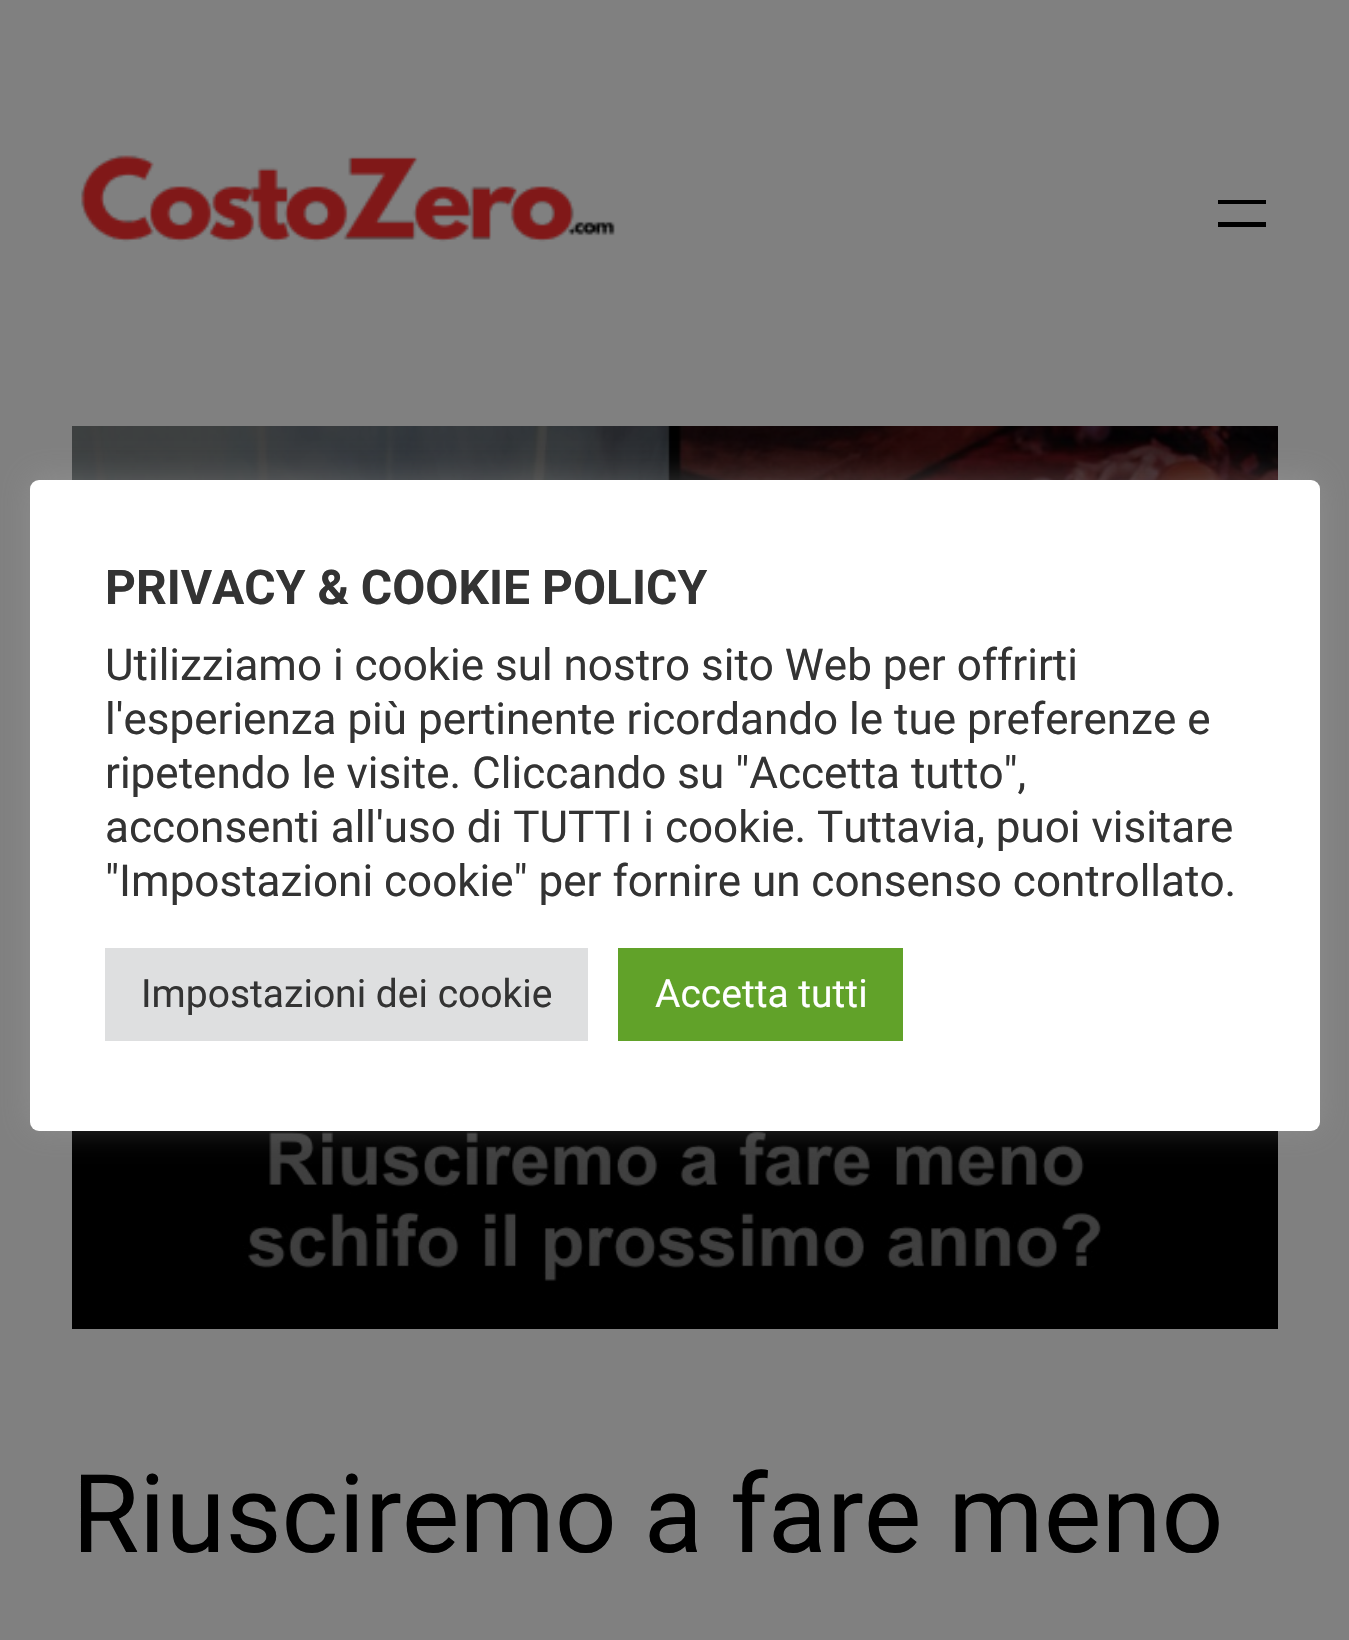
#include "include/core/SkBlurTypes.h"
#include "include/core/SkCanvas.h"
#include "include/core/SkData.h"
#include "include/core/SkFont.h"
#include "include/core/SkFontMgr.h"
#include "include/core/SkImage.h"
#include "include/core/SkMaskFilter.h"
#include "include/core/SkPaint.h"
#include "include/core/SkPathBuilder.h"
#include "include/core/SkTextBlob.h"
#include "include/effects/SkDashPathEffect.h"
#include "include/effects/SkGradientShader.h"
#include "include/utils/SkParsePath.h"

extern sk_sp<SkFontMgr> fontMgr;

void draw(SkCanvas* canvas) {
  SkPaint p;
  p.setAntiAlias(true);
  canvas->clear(SkColorSetRGB(128, 128, 128));
  canvas->drawImageRect(SkImages::DeferredFromEncodedData(SkData::MakeFromFileName("images/2.png")), SkRect::MakeLTRB(72, 426, 1278, 1329), SkSamplingOptions());
  p.setColor(SkColorSetARGB(77, 172, 171, 171));
  p.setMaskFilter(SkMaskFilter::MakeBlur(kNormal_SkBlurStyle, 15));
  canvas->drawRoundRect(SkRect::MakeLTRB(30, 477, 1320, 1128), 9, 9, p);
  p.setMaskFilter(nullptr);
  p.setColor(SK_ColorWHITE);
  canvas->drawRoundRect(SkRect::MakeLTRB(30, 480, 1320, 1131), 9, 9, p);
  p.setColor(SkColorSetRGB(222, 223, 224));
  canvas->drawRect(SkRect::MakeLTRB(105, 948, 588, 1041), p);
  p.setColor(SkColorSetRGB(97, 162, 41));
  canvas->drawRect(SkRect::MakeLTRB(618, 948, 903, 1041), p);
  canvas->drawImageRect(SkImages::DeferredFromEncodedData(SkData::MakeFromFileName("images/1.png")), SkRect::MakeLTRB(81, 155, 615, 242), SkSamplingOptions());
  p.setColor(SK_ColorBLACK);
  canvas->drawRect(SkRect::MakeLTRB(1218, 200, 1266, 204), p);
  canvas->drawRect(SkRect::MakeLTRB(1218, 222, 1266, 227), p);
  SkFont font1(fontMgr->matchFamilyStyle("Roboto", SkFontStyle::Bold()), 48);
  font1.setSubpixel(true);
  p.setColor(SkColorSetRGB(51, 51, 51));
  canvas->drawString("PRIVACY & COOKIE POLICY", 105, 604, font1, p);
  SkFont font2(fontMgr->matchFamilyStyle("Roboto", SkFontStyle::Normal()), 44);
  font2.setSubpixel(true);
  canvas->drawString("Utilizziamo i cookie sul nostro sito Web per offrirti", 105, 680, font2, p);
  canvas->drawString("l'esperienza più pertinente ricordando le tue preferenze e", 105, 734, font2, p);
  canvas->drawString("ripetendo le visite. Cliccando su \"Accetta tutto\",", 105, 788, font2, p);
  canvas->drawString("acconsenti all'uso di TUTTI i cookie. Tuttavia, puoi visitare", 105, 842, font2, p);
  canvas->drawString("\"Impostazioni cookie\" per fornire un consenso controllato.", 105, 896, font2, p);
  SkFont font3(fontMgr->matchFamilyStyle("Roboto", SkFontStyle::Normal()), 39);
  font3.setSubpixel(true);
  canvas->drawString("Impostazioni dei cookie", 141, 1007, font3, p);
  p.setColor(SK_ColorWHITE);
  canvas->drawString("Accetta tutti", 655, 1007, font3, p);
  SkFont font4(fontMgr->matchFamilyStyle("Roboto", SkFontStyle::Normal()), 108.75f);
  font4.setSubpixel(true);
  p.setColor(SK_ColorBLACK);
  canvas->drawString("Riusciremo a fare meno", 72, 1552, font4, p);
}
